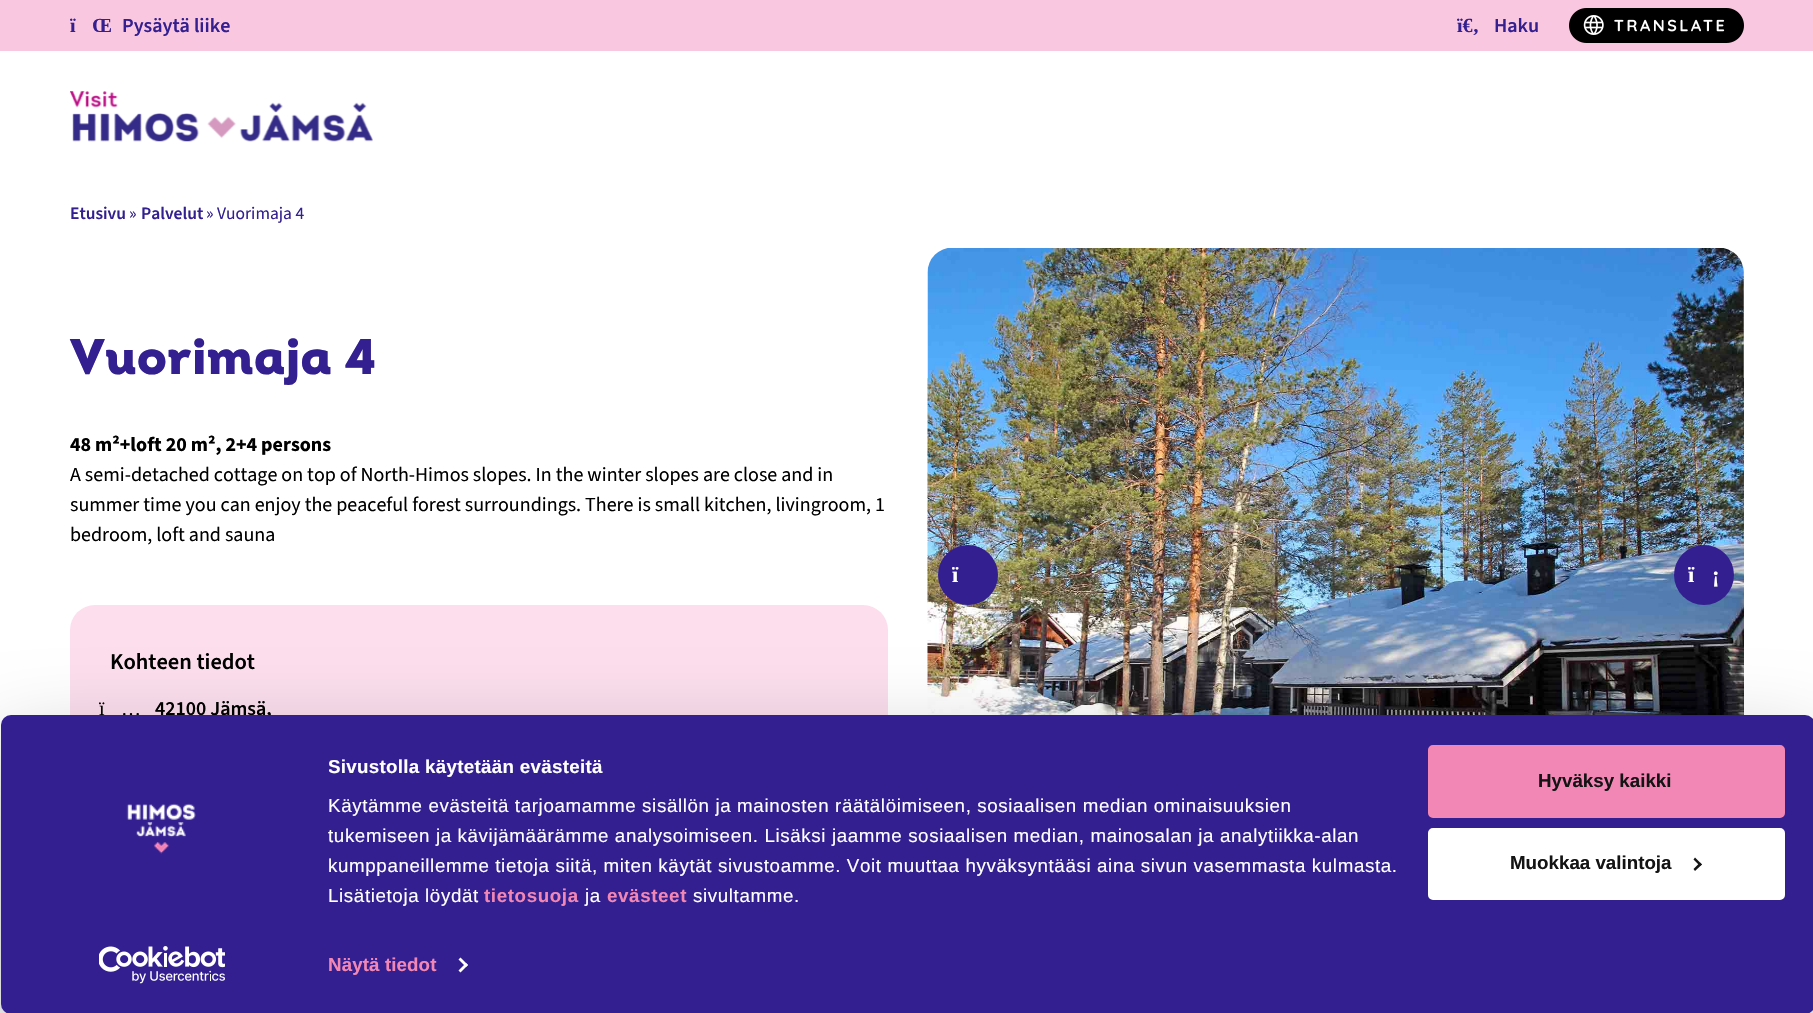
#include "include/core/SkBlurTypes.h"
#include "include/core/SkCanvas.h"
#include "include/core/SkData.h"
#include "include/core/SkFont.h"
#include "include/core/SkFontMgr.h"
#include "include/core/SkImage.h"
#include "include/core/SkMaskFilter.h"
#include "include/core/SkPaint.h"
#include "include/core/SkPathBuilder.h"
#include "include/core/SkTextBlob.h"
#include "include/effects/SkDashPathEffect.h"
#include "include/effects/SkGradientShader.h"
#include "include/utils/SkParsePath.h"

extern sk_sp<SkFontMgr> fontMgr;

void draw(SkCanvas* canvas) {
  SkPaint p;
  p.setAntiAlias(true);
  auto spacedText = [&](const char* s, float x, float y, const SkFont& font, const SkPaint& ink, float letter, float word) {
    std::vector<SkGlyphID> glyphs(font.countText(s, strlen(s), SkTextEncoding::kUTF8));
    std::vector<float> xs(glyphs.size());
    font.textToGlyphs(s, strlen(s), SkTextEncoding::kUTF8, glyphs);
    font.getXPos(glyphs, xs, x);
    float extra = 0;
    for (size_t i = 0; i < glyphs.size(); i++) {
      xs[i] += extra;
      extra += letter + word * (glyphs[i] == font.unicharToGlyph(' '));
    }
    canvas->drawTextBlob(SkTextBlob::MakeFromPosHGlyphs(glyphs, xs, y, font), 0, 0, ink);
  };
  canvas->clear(SK_ColorWHITE);
  p.setColor(SkColorSetRGB(250, 199, 224));
  canvas->drawRect(SkRect::MakeLTRB(0, 0, 1813, 51), p);
  canvas->drawImageRect(SkImages::DeferredFromEncodedData(SkData::MakeFromFileName("images/1.png")), SkRect::MakeLTRB(1569, 8, 1744, 43), SkSamplingOptions());
  canvas->drawImageRect(SkImages::DeferredFromEncodedData(SkData::MakeFromFileName("images/2.png")), SkRect::MakeLTRB(70, 91, 373, 142), SkSamplingOptions());
  p.setColor(SkColorSetRGB(252, 222, 237));
  canvas->drawRoundRect(SkRect::MakeLTRB(70, 605, 888, 930), 25, 25, p);
  canvas->drawImageRect(SkImages::DeferredFromEncodedData(SkData::MakeFromFileName("images/3.png")), SkRect::MakeLTRB(927, 248, 1744, 715), SkSamplingOptions());
  p.setColor(SkColorSetRGB(51, 31, 143));
  canvas->drawCircle(968, 575, 30, p);
  canvas->drawCircle(1704, 575, 30, p);
  p.setColor(SkColorSetARGB(77, 0, 0, 0));
  p.setMaskFilter(SkMaskFilter::MakeBlur(kNormal_SkBlurStyle, 44));
  canvas->drawRoundRect(SkRect::MakeLTRB(1, 753, 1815, 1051), 10, 10, p);
  p.setMaskFilter(nullptr);
  SkFont font1(fontMgr->matchFamilyStyle("Liberation Serif", SkFontStyle::Bold()), 20);
  font1.setSubpixel(true);
  p.setColor(SkColorSetRGB(51, 31, 143));
  canvas->drawString("ï", 70, 32, font1, p);
  canvas->drawString("Œ", 92, 32, font1, p);
  SkFont font2(fontMgr->matchFamilyStyle("Source Sans 3", SkFontStyle(600, SkFontStyle::kNormal_Width, SkFontStyle::kUpright_Slant)), 20);
  font2.setSubpixel(true);
  canvas->drawString("Pysäytä liike", 122, 32, font2, p);
  canvas->drawString("ï€‚", 1457, 32, font1, p);
  canvas->drawString("Haku", 1494, 32, font2, p);
  SkFont font3(fontMgr->matchFamilyStyle("Source Sans 3", SkFontStyle(600, SkFontStyle::kNormal_Width, SkFontStyle::kUpright_Slant)), 17.5f);
  font3.setSubpixel(true);
  canvas->drawString("Etusivu", 70, 219, font3, p);
  SkFont font4(fontMgr->matchFamilyStyle("Source Sans 3", SkFontStyle::Normal()), 17.5f);
  font4.setSubpixel(true);
  canvas->drawString("»", 129, 219, font4, p);
  canvas->drawString("Palvelut", 141, 219, font3, p);
  canvas->drawString("» Vuorimaja 4", 206, 219, font4, p);
  SkFont font5(fontMgr->matchFamilyStyle("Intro", SkFontStyle(900, SkFontStyle::kNormal_Width, SkFontStyle::kUpright_Slant)), 50);
  font5.setSubpixel(true);
  canvas->drawString("Vuorimaja 4", 70, 374, font5, p);
  SkFont font6(fontMgr->matchFamilyStyle("Source Sans 3", SkFontStyle::Bold()), 20);
  font6.setSubpixel(true);
  p.setColor(SK_ColorBLACK);
  canvas->drawString("48 m²+loft 20 m², 2+4 persons", 70, 451, font6, p);
  SkFont font7(fontMgr->matchFamilyStyle("Source Sans 3", SkFontStyle::Normal()), 20);
  font7.setSubpixel(true);
  canvas->drawString("A semi-detached cottage on top of North-Himos slopes. In the winter slopes are close and in", 70, 481, font7, p);
  canvas->drawString("summer time you can enjoy the peaceful forest surroundings. There is small kitchen, livingroom, 1", 70, 511, font7, p);
  canvas->drawString("bedroom, loft and sauna", 70, 541, font7, p);
  SkFont font8(fontMgr->matchFamilyStyle("Source Sans 3", SkFontStyle(600, SkFontStyle::kNormal_Width, SkFontStyle::kUpright_Slant)), 22.5f);
  font8.setSubpixel(true);
  canvas->drawString("Kohteen tiedot", 110, 669, font8, p);
  SkFont font9(fontMgr->matchFamilyStyle("Liberation Serif", SkFontStyle::Normal()), 20);
  font9.setSubpixel(true);
  canvas->drawString("ï", 99, 715, font9, p);
  canvas->drawString("…", 121, 715, font9, p);
  canvas->drawString("42100 Jämsä,", 155, 715, font2, p);
  SkFont font10(fontMgr->matchFamilyStyle("Liberation Serif", SkFontStyle::Bold()), 22.5f);
  font10.setSubpixel(true);
  p.setColor(SK_ColorWHITE);
  canvas->drawString("ï", 952, 582, font10, p);
  canvas->drawString("ï", 1688, 582, font10, p);
  canvas->drawString("¡", 1712, 582, font10, p);
  p.setColor(SkColorSetRGB(51, 31, 143));
  canvas->drawRoundRect(SkRect::MakeLTRB(1, 715, 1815, 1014), 10, 10, p);
  canvas->drawImageRect(SkImages::DeferredFromEncodedData(SkData::MakeFromFileName("images/4.png")), SkRect::MakeLTRB(126, 803, 196, 854), SkSamplingOptions());
  canvas->drawImageRect(SkImages::DeferredFromEncodedData(SkData::MakeFromFileName("images/5.png")), SkRect::MakeLTRB(99, 946, 225, 984), SkSamplingOptions());
  canvas->save();
  canvas->clipRect(SkRect::MakeLTRB(329, 753, 1420, 911));
  SkFont font11(fontMgr->matchFamilyStyle("Liberation Sans", SkFontStyle::Bold()), 18.75f);
  font11.setSubpixel(true);
  p.setColor(SK_ColorWHITE);
  spacedText("Sivustolla käytetään evästeitä", 328, 773, font11, p, 0.3f, 0);
  canvas->restore();
  SkFont font12(fontMgr->matchFamilyStyle("Liberation Sans", SkFontStyle::Normal()), 18.75f);
  font12.setSubpixel(true);
  spacedText("Käytämme evästeitä tarjoamamme sisällön ja mainosten räätälöimiseen, sosiaalisen median ominaisuuksien", 328, 812, font12, p, 0.62f, 0);
  spacedText("tukemiseen ja kävijämäärämme analysoimiseen. Lisäksi jaamme sosiaalisen median, mainosalan ja analytiikka-alan", 328, 842, font12, p, 0.62f, 0);
  canvas->save();
  canvas->clipRect(SkRect::MakeLTRB(329, 753, 1420, 911));
  spacedText("kumppaneillemme tietoja siitä, miten käytät sivustoamme. Voit muuttaa hyväksyntääsi aina sivun vasemmasta kulmasta.", 328, 872, font12, p, 0.62f, 0);
  canvas->restore();
  spacedText("Lisätietoja löydät", 328, 902, font12, p, 0.62f, 0);
  p.setColor(SkColorSetRGB(242, 135, 181));
  spacedText("tietosuoja", 484, 902, font11, p, 0.62f, 0);
  p.setColor(SK_ColorWHITE);
  spacedText("ja", 585, 902, font12, p, 0.62f, 0);
  p.setColor(SkColorSetRGB(242, 135, 181));
  spacedText("evästeet", 607, 902, font11, p, 0.62f, 0);
  p.setColor(SK_ColorWHITE);
  spacedText("sivultamme.", 693, 902, font12, p, 0.62f, 0);
  p.setColor(SkColorSetRGB(242, 135, 181));
  spacedText("Näytä tiedot", 328, 971, font11, p, 0.1f, 0);
  p.setColor(SK_ColorWHITE);
  canvas->drawPath(SkPathBuilder().moveTo(460.5f, 957.5f).lineTo(468, 965).lineTo(466, 967).lineTo(458.5f, 959.5f).close().detach(), p);
  canvas->drawPath(SkPathBuilder().moveTo(466, 963).lineTo(468, 965).lineTo(460.5f, 972.5f).lineTo(458.5f, 970.5f).close().detach(), p);
  p.setColor(SkColorSetRGB(242, 135, 181));
  canvas->drawRoundRect(SkRect::MakeLTRB(1429.5f, 746.5f, 1783.5f, 816.5f), 3.5f, 3.5f, p);
  p.setStyle(SkPaint::kStroke_Style);
  p.setStrokeWidth(3);
  canvas->drawRoundRect(SkRect::MakeLTRB(1429.5f, 746.5f, 1783.5f, 816.5f), 3.5f, 3.5f, p);
  p.setStyle(SkPaint::kFill_Style);
  p.setColor(SkColorSetRGB(20, 20, 20));
  canvas->drawString("Hyväksy kaikki", 1538, 787, font11, p);
  p.setColor(SK_ColorWHITE);
  canvas->drawRoundRect(SkRect::MakeLTRB(1429.5f, 829.5f, 1783.5f, 898.5f), 3.5f, 3.5f, p);
  p.setStyle(SkPaint::kStroke_Style);
  canvas->drawRoundRect(SkRect::MakeLTRB(1429.5f, 829.5f, 1783.5f, 898.5f), 3.5f, 3.5f, p);
  p.setStyle(SkPaint::kFill_Style);
  p.setColor(SkColorSetRGB(20, 20, 20));
  canvas->drawString("Muokkaa valintoja", 1510, 869, font11, p);
  canvas->drawPath(SkPathBuilder().moveTo(1695, 857.5f).lineTo(1702, 864.5f).lineTo(1700, 866).lineTo(1693.5f, 859.5f).close().detach(), p);
  canvas->drawPath(SkPathBuilder().moveTo(1700, 862.5f).lineTo(1702, 864.5f).lineTo(1695, 871).lineTo(1693.5f, 869).close().detach(), p);
}
